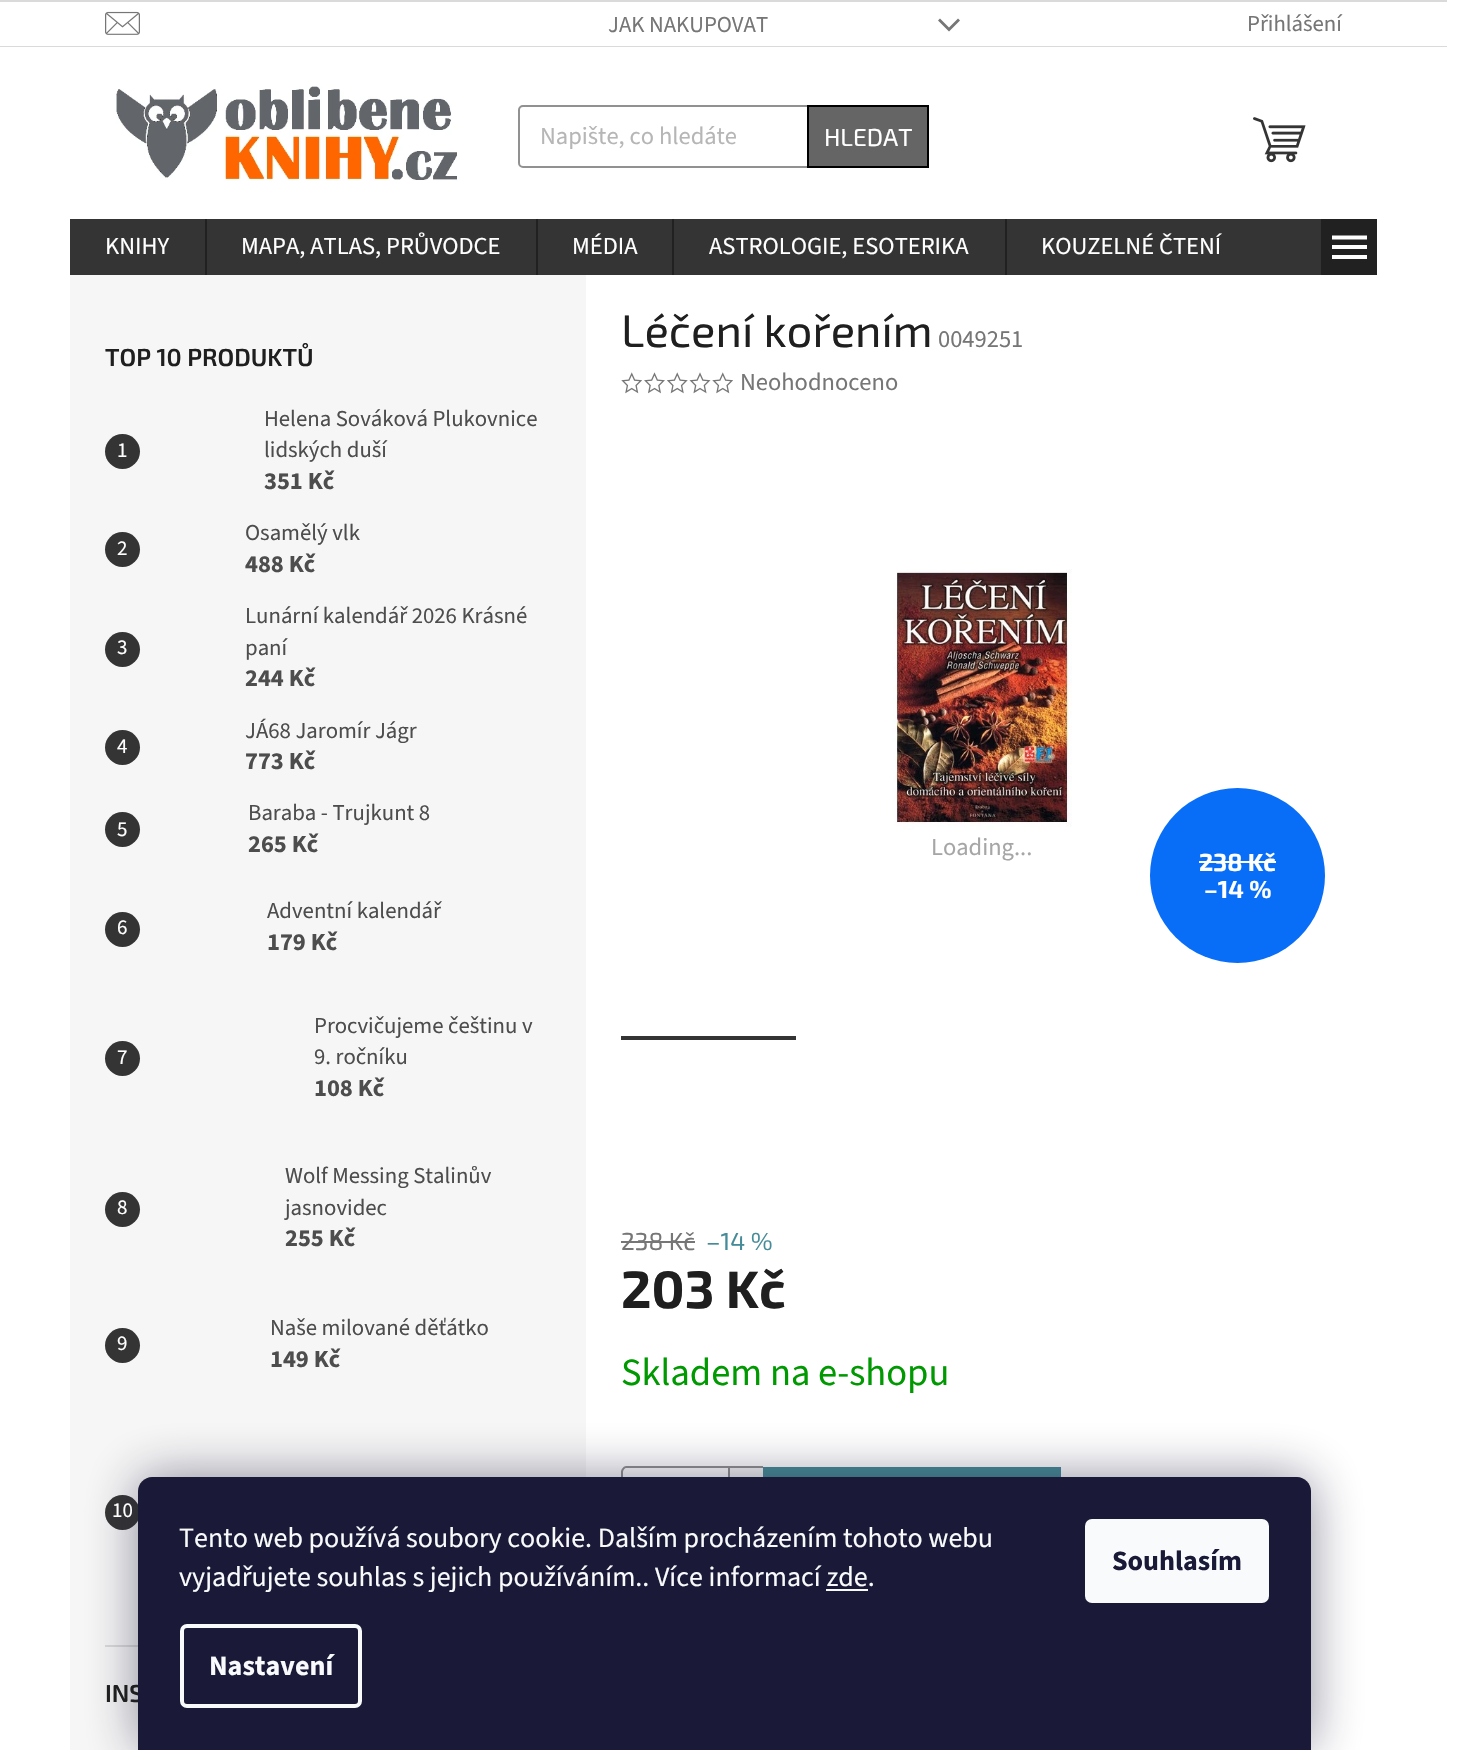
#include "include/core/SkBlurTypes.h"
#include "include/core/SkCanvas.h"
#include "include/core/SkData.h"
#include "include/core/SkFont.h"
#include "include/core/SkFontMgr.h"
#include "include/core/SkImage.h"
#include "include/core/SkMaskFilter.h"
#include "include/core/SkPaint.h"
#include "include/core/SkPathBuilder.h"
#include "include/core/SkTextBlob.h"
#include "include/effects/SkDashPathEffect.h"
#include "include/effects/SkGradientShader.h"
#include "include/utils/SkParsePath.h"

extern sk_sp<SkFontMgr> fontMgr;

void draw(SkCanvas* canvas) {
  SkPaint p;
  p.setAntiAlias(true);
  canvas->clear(SK_ColorWHITE);
  p.setColor(SkColorSetRGB(218, 218, 218));
  canvas->drawRect(SkRect::MakeLTRB(0, 0, 1447, 2), p);
  canvas->drawRect(SkRect::MakeLTRB(0, 46, 1447, 47), p);
  canvas->drawImageRect(SkImages::DeferredFromEncodedData(SkData::MakeFromFileName("images/1.png")), SkRect::MakeLTRB(105, 11, 140, 35), SkSamplingOptions());
  p.setColor(SkColorSetRGB(118, 118, 118));
  canvas->drawPath(SkPathBuilder().moveTo(938, 20.5f).lineTo(940, 18.5f).lineTo(949, 27.5f).lineTo(958, 18.5f).lineTo(960, 20.5f).lineTo(949, 31.5f).close().detach(), p);
  canvas->drawImageRect(SkImages::DeferredFromEncodedData(SkData::MakeFromFileName("images/2.png")), SkRect::MakeLTRB(116, 86, 458, 181), SkSamplingOptions());
  p.setStyle(SkPaint::kStroke_Style);
  p.setStrokeWidth(2);
  p.setColor(SkColorSetRGB(145, 145, 145));
  canvas->drawRoundRect(SkRect::MakeLTRB(519, 106, 928, 167), 4, 4, p);
  p.setStyle(SkPaint::kFill_Style);
  p.setColor(SkColorSetRGB(101, 101, 101));
  canvas->drawRect(SkRect::MakeLTRB(808, 106, 928, 167), p);
  p.setStyle(SkPaint::kStroke_Style);
  p.setColor(SK_ColorBLACK);
  canvas->drawRect(SkRect::MakeLTRB(808, 106, 928, 167), p);
  canvas->drawImageRect(SkImages::DeferredFromEncodedData(SkData::MakeFromFileName("images/3.png")), SkRect::MakeLTRB(1253, 117, 1306, 163), SkSamplingOptions());
  p.setStyle(SkPaint::kFill_Style);
  p.setColor(SkColorSetRGB(52, 52, 52));
  canvas->drawRect(SkRect::MakeLTRB(70, 219, 1321, 275), p);
  p.setColor(SkColorSetRGB(33, 33, 33));
  canvas->drawRect(SkRect::MakeLTRB(205, 219, 207, 275), p);
  canvas->drawRect(SkRect::MakeLTRB(536, 219, 538, 275), p);
  canvas->drawRect(SkRect::MakeLTRB(672, 219, 674, 275), p);
  canvas->drawRect(SkRect::MakeLTRB(1005, 219, 1007, 275), p);
  canvas->drawRect(SkRect::MakeLTRB(1321, 219, 1377, 275), p);
  p.setColor(SK_ColorWHITE);
  canvas->drawPath(SkPathBuilder().moveTo(1332, 259).lineTo(1367, 259).lineTo(1367, 255).lineTo(1332, 255).close().moveTo(1332, 249).lineTo(1367, 249).lineTo(1367, 245).lineTo(1332, 245).close().moveTo(1332, 235.5f).lineTo(1332, 239.5f).lineTo(1367, 239.5f).lineTo(1367, 235.5f).close().detach(), p);
  p.setColor(SkColorSetRGB(246, 246, 246));
  canvas->drawRect(SkRect::MakeLTRB(70, 275, 586, 1750), p);
  p.setColor(SkColorSetRGB(218, 218, 218));
  canvas->drawRect(SkRect::MakeLTRB(105, 1645, 138, 1647), p);
  p.setColor(SkColorSetRGB(52, 52, 52));
  canvas->drawCircle(122.5f, 451.5f, 17.5f, p);
  canvas->drawCircle(122.5f, 549.5f, 17.5f, p);
  canvas->drawCircle(122.5f, 649.5f, 17.5f, p);
  canvas->drawCircle(122.5f, 747.5f, 17.5f, p);
  canvas->drawCircle(122.5f, 829.5f, 17.5f, p);
  canvas->drawCircle(122.5f, 929.5f, 17.5f, p);
  canvas->drawCircle(122.5f, 1058.5f, 17.5f, p);
  canvas->drawCircle(122.5f, 1209.5f, 17.5f, p);
  canvas->drawCircle(122.5f, 1345.5f, 17.5f, p);
  canvas->drawCircle(122.5f, 1512.5f, 17.5f, p);
  canvas->drawImageRect(SkImages::DeferredFromEncodedData(SkData::MakeFromFileName("images/4.png")), SkRect::MakeLTRB(621, 372, 642, 394), SkSamplingOptions());
  canvas->drawImageRect(SkImages::DeferredFromEncodedData(SkData::MakeFromFileName("images/5.png")), SkRect::MakeLTRB(644, 372, 665, 394), SkSamplingOptions());
  canvas->drawImageRect(SkImages::DeferredFromEncodedData(SkData::MakeFromFileName("images/6.png")), SkRect::MakeLTRB(667, 372, 688, 394), SkSamplingOptions());
  canvas->drawImageRect(SkImages::DeferredFromEncodedData(SkData::MakeFromFileName("images/7.png")), SkRect::MakeLTRB(689, 372, 711, 394), SkSamplingOptions());
  canvas->drawImageRect(SkImages::DeferredFromEncodedData(SkData::MakeFromFileName("images/4.png")), SkRect::MakeLTRB(712, 372, 733, 394), SkSamplingOptions());
  canvas->drawImageRect(SkImages::DeferredFromEncodedData(SkData::MakeFromFileName("images/8.png")), SkRect::MakeLTRB(892, 569, 1072, 830), SkSamplingOptions());
  p.setColor(SkColorSetRGB(8, 109, 247));
  canvas->drawCircle(1237.5f, 875.5f, 87.5f, p);
  p.setColor(SK_ColorWHITE);
  canvas->drawRect(SkRect::MakeLTRB(1199, 861, 1276, 863), p);
  p.setColor(SkColorSetRGB(52, 52, 52));
  canvas->drawRect(SkRect::MakeLTRB(621, 1036, 796, 1040), p);
  p.setColor(SkColorSetRGB(118, 118, 118));
  canvas->drawRect(SkRect::MakeLTRB(621, 1241, 695, 1243), p);
  p.setColor(SkColorSetRGB(145, 145, 145));
  canvas->drawPath(SkPathBuilder(SkPathFillType::kEvenOdd).moveTo(626, 1466).lineTo(763, 1466).lineTo(763, 1550).lineTo(626, 1550).cubicTo(624, 1550, 621, 1548, 621, 1545).lineTo(621, 1472).cubicTo(621, 1469, 624, 1466, 626, 1466).close().moveTo(626, 1468).lineTo(763, 1468).lineTo(763, 1549).lineTo(626, 1549).cubicTo(625, 1549, 623, 1547, 623, 1545).lineTo(623, 1472).cubicTo(623, 1470, 625, 1468, 626, 1468).close().detach(), p);
  p.setColor(SkColorSetRGB(246, 246, 246));
  canvas->drawRect(SkRect::MakeLTRB(730, 1468, 763, 1477), p);
  p.setColor(SkColorSetRGB(145, 145, 145));
  canvas->drawRect(SkRect::MakeLTRB(728, 1468, 730, 1477), p);
  p.setColor(SkColorSetRGB(70, 140, 152));
  canvas->drawRect(SkRect::MakeLTRB(763, 1467, 1061, 1477), p);
  p.setColor(SkColorSetARGB(128, 27, 25, 57));
  p.setMaskFilter(SkMaskFilter::MakeBlur(kNormal_SkBlurStyle, 26));
  canvas->drawRoundRect(SkRect::MakeLTRB(138, 1477, 1311, 1750), 14, 14, p);
  p.setMaskFilter(nullptr);
  SkFont font1(fontMgr->matchFamilyStyle("Source Sans 3", SkFontStyle::Normal()), 22.75f);
  font1.setSubpixel(true);
  p.setColor(SkColorSetRGB(118, 118, 118));
  canvas->drawString("JAK NAKUPOVAT", 608, 32, font1, p);
  canvas->drawString("Přihlášení", 1247, 31, font1, p);
  SkFont font2(fontMgr->matchFamilyStyle("Source Sans 3", SkFontStyle::Normal()), 24.5f);
  font2.setSubpixel(true);
  p.setColor(SkColorSetRGB(182, 182, 182));
  canvas->drawString("Napište, co hledáte", 540, 144, font2, p);
  SkFont font3(fontMgr->matchFamilyStyle("Exo 2", SkFontStyle::Normal()), 24.5f);
  font3.setSubpixel(true);
  p.setColor(SK_ColorWHITE);
  canvas->drawString("HLEDAT", 824, 146, font3, p);
  canvas->drawString("KNIHY", 105, 254, font2, p);
  canvas->drawString("MAPA, ATLAS, PRŮVODCE", 241, 254, font2, p);
  canvas->drawString("MÉDIA", 572, 254, font2, p);
  canvas->drawString("ASTROLOGIE, ESOTERIKA", 709, 254, font2, p);
  canvas->drawString("KOUZELNÉ ČTENÍ", 1041, 254, font2, p);
  SkFont font4(fontMgr->matchFamilyStyle("Exo 2", SkFontStyle(600, SkFontStyle::kNormal_Width, SkFontStyle::kUpright_Slant)), 24.5f);
  font4.setSubpixel(true);
  p.setColor(SkColorSetRGB(31, 31, 31));
  canvas->drawString("TOP 10 PRODUKTŮ", 105, 366, font4, p);
  SkFont font5(fontMgr->matchFamilyStyle("Source Sans 3", SkFontStyle::Normal()), 21);
  font5.setSubpixel(true);
  p.setColor(SK_ColorWHITE);
  canvas->drawString("1", 117, 457, font5, p);
  p.setColor(SkColorSetRGB(77, 77, 77));
  canvas->drawString("Helena Sováková Plukovnice", 264, 426, font1, p);
  canvas->drawString("lidských duší", 264, 457, font1, p);
  SkFont font6(fontMgr->matchFamilyStyle("Source Sans 3", SkFontStyle::Bold()), 24.5f);
  font6.setSubpixel(true);
  canvas->drawString("351 Kč", 264, 489, font6, p);
  p.setColor(SK_ColorWHITE);
  canvas->drawString("2", 117, 555, font5, p);
  p.setColor(SkColorSetRGB(77, 77, 77));
  canvas->drawString("Osamělý vlk", 245, 540, font1, p);
  canvas->drawString("488 Kč", 245, 572, font6, p);
  p.setColor(SK_ColorWHITE);
  canvas->drawString("3", 117, 654, font5, p);
  p.setColor(SkColorSetRGB(77, 77, 77));
  canvas->drawString("Lunární kalendář 2026 Krásné", 245, 623, font1, p);
  canvas->drawString("paní", 245, 655, font1, p);
  canvas->drawString("244 Kč", 245, 686, font6, p);
  p.setColor(SK_ColorWHITE);
  canvas->drawString("4", 117, 753, font5, p);
  p.setColor(SkColorSetRGB(77, 77, 77));
  canvas->drawString("JÁ68 Jaromír Jágr", 245, 738, font1, p);
  canvas->drawString("773 Kč", 245, 769, font6, p);
  p.setColor(SK_ColorWHITE);
  canvas->drawString("5", 117, 836, font5, p);
  p.setColor(SkColorSetRGB(77, 77, 77));
  canvas->drawString("Baraba - Trujkunt 8", 248, 820, font1, p);
  canvas->drawString("265 Kč", 248, 852, font6, p);
  p.setColor(SK_ColorWHITE);
  canvas->drawString("6", 117, 934, font5, p);
  p.setColor(SkColorSetRGB(77, 77, 77));
  canvas->drawString("Adventní kalendář", 267, 918, font1, p);
  canvas->drawString("179 Kč", 267, 950, font6, p);
  p.setColor(SK_ColorWHITE);
  canvas->drawString("7", 117, 1064, font5, p);
  p.setColor(SkColorSetRGB(77, 77, 77));
  canvas->drawString("Procvičujeme češtinu v", 314, 1033, font1, p);
  canvas->drawString("9. ročníku", 314, 1064, font1, p);
  canvas->drawString("108 Kč", 314, 1096, font6, p);
  p.setColor(SK_ColorWHITE);
  canvas->drawString("8", 117, 1214, font5, p);
  p.setColor(SkColorSetRGB(77, 77, 77));
  canvas->drawString("Wolf Messing Stalinův", 285, 1183, font1, p);
  canvas->drawString("jasnovidec", 285, 1215, font1, p);
  canvas->drawString("255 Kč", 285, 1246, font6, p);
  p.setColor(SK_ColorWHITE);
  canvas->drawString("9", 117, 1350, font5, p);
  p.setColor(SkColorSetRGB(77, 77, 77));
  canvas->drawString("Naše milované děťátko", 270, 1335, font1, p);
  canvas->drawString("149 Kč", 270, 1367, font6, p);
  p.setColor(SK_ColorWHITE);
  canvas->drawString("10", 112, 1517, font5, p);
  p.setColor(SkColorSetRGB(31, 31, 31));
  canvas->drawString("INS", 105, 1702, font4, p);
  SkFont font7(fontMgr->matchFamilyStyle("Exo 2", SkFontStyle::Normal()), 45.5f);
  font7.setSubpixel(true);
  canvas->drawString("Léčení kořením", 621, 347, font7, p);
  p.setColor(SkColorSetRGB(118, 118, 118));
  canvas->drawString("0049251", 938, 347, font2, p);
  canvas->drawString("Neohodnoceno", 740, 390, font2, p);
  p.setColor(SkColorSetRGB(166, 166, 166));
  canvas->drawString("Loading...", 931, 855, font2, p);
  SkFont font8(fontMgr->matchFamilyStyle("Exo 2", SkFontStyle::Bold()), 24.5f);
  font8.setSubpixel(true);
  p.setColor(SK_ColorWHITE);
  canvas->drawString("238 Kč", 1199, 871, font8, p);
  canvas->drawString("–14 %", 1204, 898, font8, p);
  p.setColor(SkColorSetRGB(118, 118, 118));
  canvas->drawString("238 Kč", 621, 1250, font3, p);
  p.setColor(SkColorSetRGB(70, 140, 152));
  canvas->drawString("–14 %", 706, 1250, font3, p);
  SkFont font9(fontMgr->matchFamilyStyle("Exo 2", SkFontStyle::Bold()), 52.5f);
  font9.setSubpixel(true);
  p.setColor(SkColorSetRGB(31, 31, 31));
  canvas->drawString("203 Kč", 621, 1308, font9, p);
  SkFont font10(fontMgr->matchFamilyStyle("Source Sans 3", SkFontStyle::Normal()), 38.5f);
  font10.setSubpixel(true);
  p.setColor(SkColorSetRGB(0, 153, 1));
  canvas->drawString("Skladem na e-shopu", 621, 1385, font10, p);
  p.setColor(SkColorSetRGB(26, 25, 55));
  canvas->drawPath(SkPathBuilder().moveTo(152, 1477).lineTo(1297, 1477).cubicTo(1304.5f, 1477, 1311, 1483.5f, 1311, 1491).lineTo(1311, 1750).lineTo(138, 1750).lineTo(138, 1491).cubicTo(138, 1483.5f, 144.5f, 1477, 152, 1477).close().detach(), p);
  SkFont font11(fontMgr->matchFamilyStyle("Source Sans 3", SkFontStyle::Normal()), 28);
  font11.setSubpixel(true);
  p.setColor(SkColorSetRGB(248, 250, 251));
  canvas->drawString("Tento web používá soubory cookie. Dalším procházením tohoto webu", 179, 1547, font11, p);
  canvas->drawString("vyjadřujete souhlas s jejich používáním.. Více informací zde.", 179, 1586, font11, p);
  canvas->drawRect(SkRect::MakeLTRB(826, 1589, 868, 1591), p);
  p.setStyle(SkPaint::kStroke_Style);
  p.setStrokeWidth(4);
  canvas->drawRoundRect(SkRect::MakeLTRB(182, 1626, 360, 1706), 5, 5, p);
  SkFont font12(fontMgr->matchFamilyStyle("Source Sans 3", SkFontStyle::Bold()), 28);
  font12.setSubpixel(true);
  p.setStyle(SkPaint::kFill_Style);
  canvas->drawString("Nastavení", 209, 1675, font12, p);
  canvas->drawRoundRect(SkRect::MakeLTRB(1085, 1519, 1269, 1603), 7, 7, p);
  p.setColor(SkColorSetRGB(26, 25, 55));
  canvas->drawString("Souhlasím", 1112, 1570, font12, p);
}
